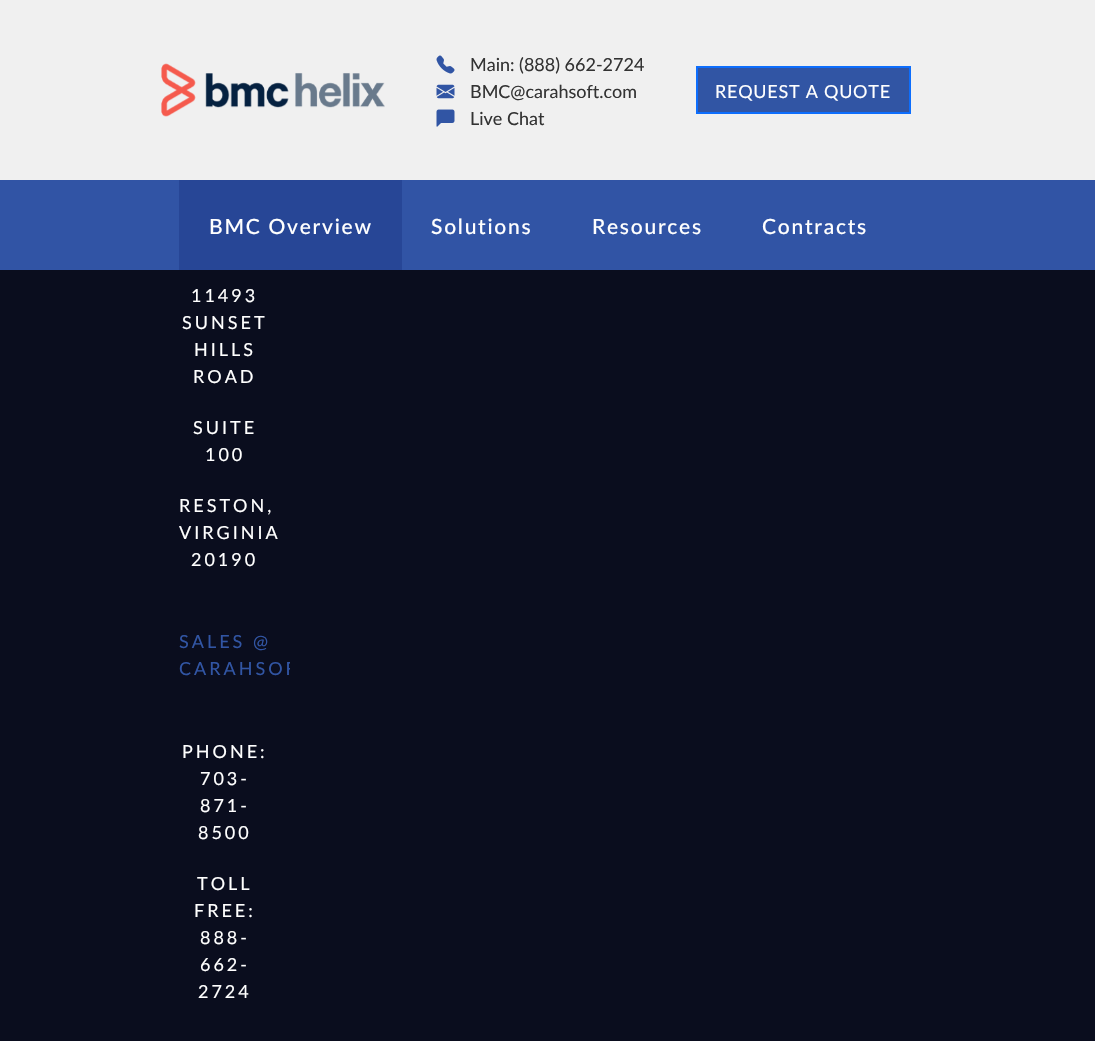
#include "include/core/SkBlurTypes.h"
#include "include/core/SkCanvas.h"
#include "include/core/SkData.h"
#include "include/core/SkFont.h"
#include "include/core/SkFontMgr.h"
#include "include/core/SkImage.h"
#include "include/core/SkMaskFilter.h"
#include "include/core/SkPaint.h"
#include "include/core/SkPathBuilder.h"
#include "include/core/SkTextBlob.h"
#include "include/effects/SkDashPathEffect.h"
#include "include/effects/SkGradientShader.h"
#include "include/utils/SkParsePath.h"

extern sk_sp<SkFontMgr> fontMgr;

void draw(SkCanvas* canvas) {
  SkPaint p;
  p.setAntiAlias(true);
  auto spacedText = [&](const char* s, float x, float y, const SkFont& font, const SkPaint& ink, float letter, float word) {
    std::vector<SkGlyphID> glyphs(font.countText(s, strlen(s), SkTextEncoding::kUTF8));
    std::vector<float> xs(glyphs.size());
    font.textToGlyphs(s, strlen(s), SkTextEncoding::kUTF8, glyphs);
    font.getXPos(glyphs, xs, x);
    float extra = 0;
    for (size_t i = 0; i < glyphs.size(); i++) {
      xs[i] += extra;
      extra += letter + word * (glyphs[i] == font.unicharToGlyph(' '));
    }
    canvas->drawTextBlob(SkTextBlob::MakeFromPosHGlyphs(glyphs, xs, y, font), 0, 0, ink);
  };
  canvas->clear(SkColorSetRGB(10, 13, 30));
  p.setColor(SkColorSetRGB(240, 240, 240));
  canvas->drawRect(SkRect::MakeLTRB(0, 0, 1095, 180), p);
  canvas->drawImageRect(SkImages::DeferredFromEncodedData(SkData::MakeFromFileName("images/1.png")), SkRect::MakeLTRB(161, 63, 385, 117), SkSamplingOptions());
  canvas->drawImageRect(SkImages::DeferredFromEncodedData(SkData::MakeFromFileName("images/2.png")), SkRect::MakeLTRB(436, 55, 455, 74), SkSamplingOptions());
  canvas->drawImageRect(SkImages::DeferredFromEncodedData(SkData::MakeFromFileName("images/3.png")), SkRect::MakeLTRB(436, 84, 455, 99), SkSamplingOptions());
  canvas->drawImageRect(SkImages::DeferredFromEncodedData(SkData::MakeFromFileName("images/4.png")), SkRect::MakeLTRB(436, 109, 455, 127), SkSamplingOptions());
  p.setColor(SkColorSetRGB(49, 85, 164));
  canvas->drawRect(SkRect::MakeLTRB(697, 67, 910, 113), p);
  p.setStyle(SkPaint::kStroke_Style);
  p.setStrokeWidth(2);
  p.setColor(SkColorSetRGB(13, 110, 253));
  canvas->drawRect(SkRect::MakeLTRB(697, 67, 910, 113), p);
  p.setStyle(SkPaint::kFill_Style);
  p.setColor(SkColorSetRGB(49, 84, 165));
  canvas->drawRect(SkRect::MakeLTRB(0, 180, 1095, 270), p);
  p.setColor(SkColorSetRGB(39, 70, 150));
  canvas->drawRect(SkRect::MakeLTRB(179, 180, 402, 270), p);
  SkFont font1(fontMgr->matchFamilyStyle("Lato", SkFontStyle::Normal()), 18);
  font1.setSubpixel(true);
  p.setColor(SkColorSetRGB(51, 51, 51));
  canvas->drawString("Main: (888) 662-2724", 470, 71, font1, p);
  canvas->drawString("BMC@carahsoft.com", 470, 98, font1, p);
  canvas->drawString("Live Chat", 470, 125, font1, p);
  p.setColor(SK_ColorWHITE);
  spacedText("REQUEST A QUOTE", 715, 98, font1, p, 0.75f, 0);
  SkFont font2(fontMgr->matchFamilyStyle("Lato", SkFontStyle(500, SkFontStyle::kNormal_Width, SkFontStyle::kUpright_Slant)), 21);
  font2.setSubpixel(true);
  spacedText("BMC Overview", 209, 234, font2, p, 1.75f, 0);
  spacedText("Solutions", 431, 234, font2, p, 1.75f, 0);
  spacedText("Resources", 592, 234, font2, p, 1.75f, 0);
  spacedText("Contracts", 762, 234, font2, p, 1.75f, 0);
  spacedText("11493", 191, 302, font1, p, 3, 0);
  spacedText("SUNSET", 182, 329, font1, p, 3, 0);
  spacedText("HILLS", 194, 356, font1, p, 3, 0);
  spacedText("ROAD", 193, 383, font1, p, 3, 0);
  spacedText("SUITE", 193, 434, font1, p, 3, 0);
  spacedText("100", 205, 461, font1, p, 3, 0);
  spacedText("RESTON,", 179, 512, font1, p, 3, 0);
  spacedText("VIRGINIA", 179, 539, font1, p, 3, 0);
  spacedText("20190", 191, 566, font1, p, 3, 0);
  p.setColor(SkColorSetRGB(49, 85, 164));
  spacedText("SALES @", 179, 648, font1, p, 3, 0);
  canvas->save();
  canvas->clipRect(SkRect::MakeLTRB(161, 126, 290, 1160));
  spacedText("CARAHSOF", 179, 675, font1, p, 3, 0);
  canvas->restore();
  p.setColor(SK_ColorWHITE);
  spacedText("PHONE:", 182, 758, font1, p, 3, 0);
  spacedText("703-", 200, 785, font1, p, 3, 0);
  spacedText("871-", 200, 812, font1, p, 3, 0);
  spacedText("8500", 198, 839, font1, p, 3, 0);
  spacedText("TOLL", 197, 890, font1, p, 3, 0);
  spacedText("FREE:", 194, 917, font1, p, 3, 0);
  spacedText("888-", 200, 944, font1, p, 3, 0);
  spacedText("662-", 200, 971, font1, p, 3, 0);
  spacedText("2724", 198, 998, font1, p, 3, 0);
}
